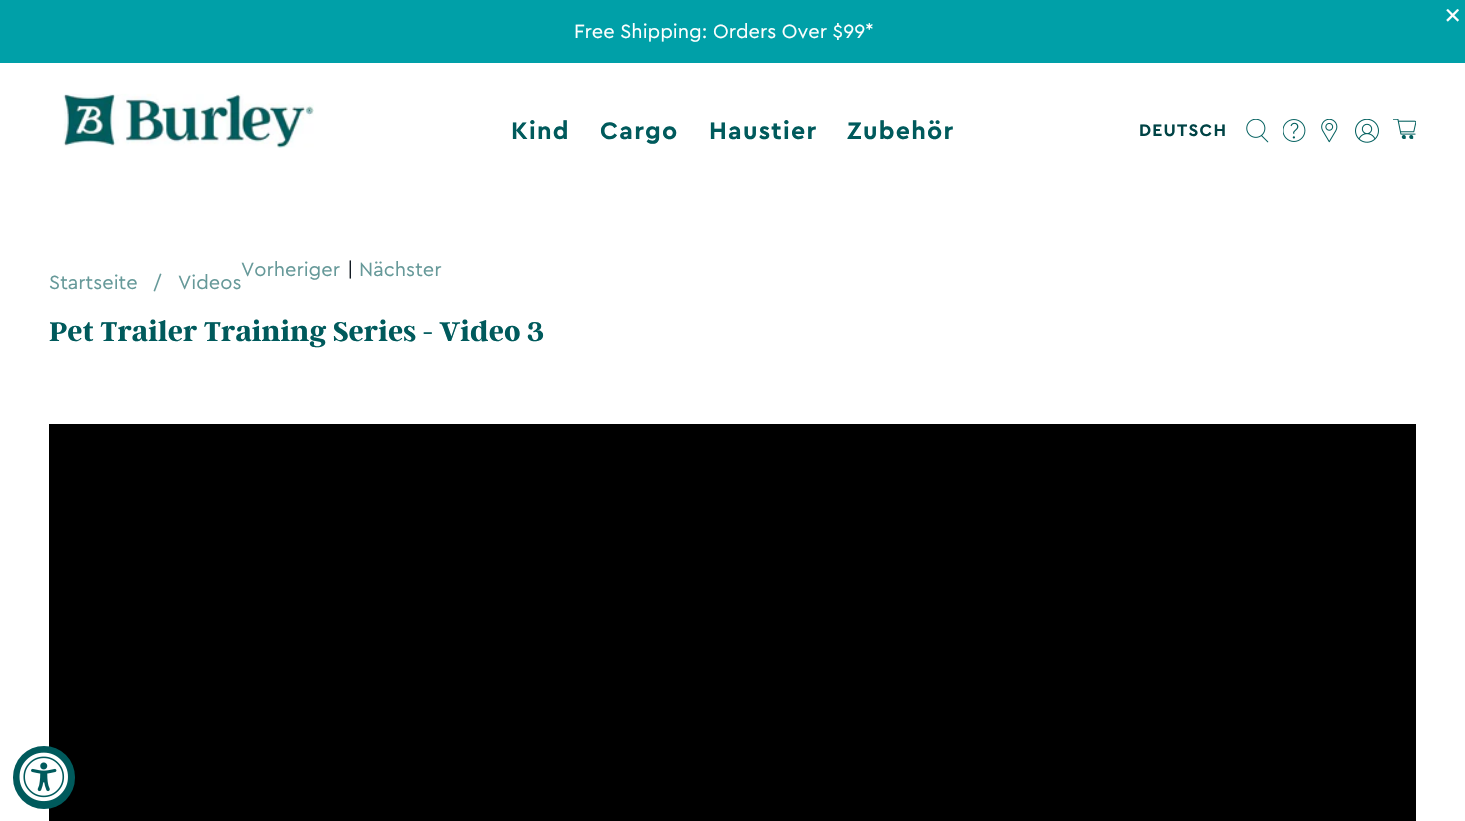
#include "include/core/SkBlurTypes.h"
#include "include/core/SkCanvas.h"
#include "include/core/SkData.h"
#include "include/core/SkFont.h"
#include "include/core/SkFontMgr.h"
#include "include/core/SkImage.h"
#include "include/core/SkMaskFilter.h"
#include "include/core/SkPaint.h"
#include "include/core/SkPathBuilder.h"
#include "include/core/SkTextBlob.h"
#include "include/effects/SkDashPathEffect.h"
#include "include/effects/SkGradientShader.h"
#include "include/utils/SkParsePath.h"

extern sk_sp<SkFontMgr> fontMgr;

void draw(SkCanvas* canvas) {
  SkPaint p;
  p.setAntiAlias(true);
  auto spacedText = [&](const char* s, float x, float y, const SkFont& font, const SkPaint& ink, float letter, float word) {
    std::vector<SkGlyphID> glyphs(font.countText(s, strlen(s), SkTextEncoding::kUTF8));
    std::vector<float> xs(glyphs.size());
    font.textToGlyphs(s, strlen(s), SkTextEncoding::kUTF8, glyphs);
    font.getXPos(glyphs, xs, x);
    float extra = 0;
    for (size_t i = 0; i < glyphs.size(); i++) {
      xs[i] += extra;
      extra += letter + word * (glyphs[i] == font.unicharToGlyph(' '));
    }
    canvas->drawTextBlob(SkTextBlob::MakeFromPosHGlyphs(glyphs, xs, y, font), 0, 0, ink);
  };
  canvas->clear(SK_ColorWHITE);
  p.setColor(SkColorSetRGB(0, 160, 168));
  canvas->drawRect(SkRect::MakeLTRB(0, 0, 1465, 63), p);
  canvas->drawImageRect(SkImages::DeferredFromEncodedData(SkData::MakeFromFileName("images/1.png")), SkRect::MakeLTRB(63, 93, 314, 148), SkSamplingOptions());
  canvas->drawImageRect(SkImages::DeferredFromEncodedData(SkData::MakeFromFileName("images/2.png")), SkRect::MakeLTRB(1246, 119, 1269, 143), SkSamplingOptions());
  canvas->drawImageRect(SkImages::DeferredFromEncodedData(SkData::MakeFromFileName("images/3.png")), SkRect::MakeLTRB(1283, 119, 1306, 142), SkSamplingOptions());
  canvas->drawImageRect(SkImages::DeferredFromEncodedData(SkData::MakeFromFileName("images/4.png")), SkRect::MakeLTRB(1321, 119, 1338, 143), SkSamplingOptions());
  canvas->drawImageRect(SkImages::DeferredFromEncodedData(SkData::MakeFromFileName("images/5.png")), SkRect::MakeLTRB(1355, 119, 1379, 143), SkSamplingOptions());
  canvas->drawImageRect(SkImages::DeferredFromEncodedData(SkData::MakeFromFileName("images/6.png")), SkRect::MakeLTRB(1393, 119, 1416, 139), SkSamplingOptions());
  p.setColor(SkColorSetRGB(102, 153, 153));
  canvas->drawPath(SkPathBuilder().moveTo(153.5f, 291).lineTo(160, 273.5f).lineTo(161.5f, 274).lineTo(155, 291.5f).close().detach(), p);
  p.setColor(SK_ColorBLACK);
  canvas->drawRect(SkRect::MakeLTRB(49, 424, 1416, 821), p);
  p.setColor(SkColorSetRGB(0, 90, 92));
  canvas->drawRoundRect(SkRect::MakeLTRB(13, 746, 75, 809), 31, 31, p);
  canvas->drawImageRect(SkImages::DeferredFromEncodedData(SkData::MakeFromFileName("images/7.png")), SkRect::MakeLTRB(19, 752, 68, 802), SkSamplingOptions());
  SkFont font1(fontMgr->matchFamilyStyle("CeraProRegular", SkFontStyle::Normal()), 31);
  font1.setSubpixel(true);
  p.setColor(SK_ColorWHITE);
  canvas->drawString("×", 1444, 25, font1, p);
  SkFont font2(fontMgr->matchFamilyStyle("CeraProRegular", SkFontStyle::Normal()), 20);
  font2.setSubpixel(true);
  canvas->drawString("Free Shipping: Orders Over $99*", 574, 38, font2, p);
  SkFont font3(fontMgr->matchFamilyStyle("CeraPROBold", SkFontStyle::Bold()), 25);
  font3.setSubpixel(true);
  p.setColor(SkColorSetRGB(0, 90, 92));
  spacedText("Kind", 511, 139, font3, p, 1.25f, 0);
  spacedText("Cargo", 600, 139, font3, p, 1.25f, 0);
  spacedText("Haustier", 709, 139, font3, p, 1.25f, 0);
  spacedText("Zubehör", 847, 139, font3, p, 1.25f, 0);
  SkFont font4(fontMgr->matchFamilyStyle("CeraPROBold", SkFontStyle::Bold()), 17.5f);
  font4.setSubpixel(true);
  p.setColor(SkColorSetRGB(0, 67, 69));
  spacedText("DEUTSCH", 1139, 136, font4, p, 1.25f, 0);
  p.setColor(SkColorSetRGB(102, 153, 153));
  canvas->drawString("Vorheriger", 241, 276, font2, p);
  p.setColor(SkColorSetRGB(17, 25, 33));
  canvas->drawString("|", 347, 276, font2, p);
  p.setColor(SkColorSetRGB(102, 153, 153));
  canvas->drawString("Nächster", 359, 276, font2, p);
  canvas->drawString("Startseite", 49, 289, font2, p);
  canvas->drawString("Videos", 178, 289, font2, p);
  SkFont font5(fontMgr->matchFamilyStyle("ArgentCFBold", SkFontStyle::Bold()), 30);
  font5.setSubpixel(true);
  p.setColor(SkColorSetRGB(0, 90, 92));
  canvas->drawString("Pet Trailer Training Series - Video 3", 49, 341, font5, p);
}
